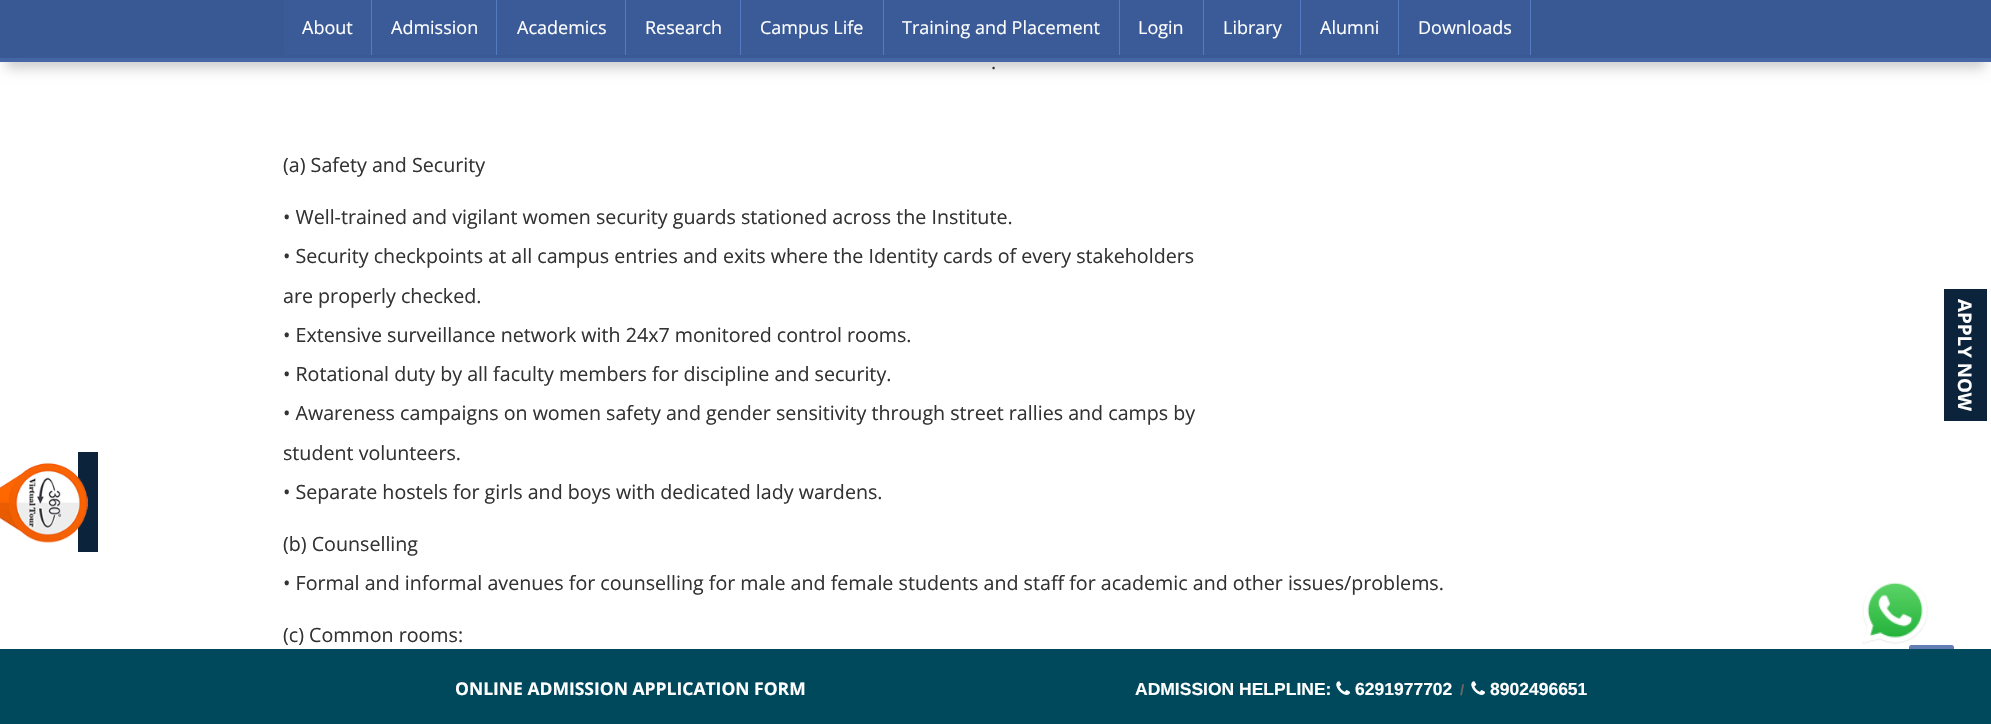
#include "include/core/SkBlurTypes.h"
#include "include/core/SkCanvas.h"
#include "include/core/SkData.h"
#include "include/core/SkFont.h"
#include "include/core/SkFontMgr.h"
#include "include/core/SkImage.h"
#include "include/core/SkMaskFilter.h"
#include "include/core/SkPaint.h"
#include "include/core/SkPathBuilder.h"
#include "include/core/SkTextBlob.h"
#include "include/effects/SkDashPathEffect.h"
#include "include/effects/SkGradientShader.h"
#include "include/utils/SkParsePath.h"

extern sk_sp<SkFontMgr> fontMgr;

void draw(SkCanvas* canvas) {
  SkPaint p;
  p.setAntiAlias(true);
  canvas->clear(SK_ColorWHITE);
  p.setColor(SkColorSetARGB(51, 0, 0, 0));
  p.setMaskFilter(SkMaskFilter::MakeBlur(kNormal_SkBlurStyle, 6));
  canvas->drawRect(SkRect::MakeLTRB(6, 19, 1985, 68), p);
  p.setMaskFilter(nullptr);
  p.setColor(SkColorSetRGB(68, 102, 166));
  canvas->drawRect(SkRect::MakeLTRB(0, 58, 1991, 62), p);
  p.setColor(SkColorSetRGB(57, 89, 149));
  canvas->drawRect(SkRect::MakeLTRB(0, 0, 1991, 58), p);
  p.setColor(SkColorSetRGB(58, 91, 152));
  canvas->drawRect(SkRect::MakeLTRB(284, 0, 625, 55), p);
  p.setColor(SkColorSetRGB(84, 122, 194));
  canvas->drawRect(SkRect::MakeLTRB(371, 0, 372, 55), p);
  canvas->drawRect(SkRect::MakeLTRB(496, 0, 497, 55), p);
  canvas->drawRect(SkRect::MakeLTRB(625, 0, 626, 55), p);
  p.setColor(SkColorSetRGB(58, 91, 152));
  canvas->drawRect(SkRect::MakeLTRB(626, 0, 740, 55), p);
  p.setColor(SkColorSetRGB(84, 122, 194));
  canvas->drawRect(SkRect::MakeLTRB(740, 0, 741, 55), p);
  p.setColor(SkColorSetRGB(58, 91, 152));
  canvas->drawRect(SkRect::MakeLTRB(741, 0, 883, 55), p);
  p.setColor(SkColorSetRGB(84, 122, 194));
  canvas->drawRect(SkRect::MakeLTRB(883, 0, 884, 55), p);
  p.setColor(SkColorSetRGB(58, 91, 152));
  canvas->drawRect(SkRect::MakeLTRB(884, 0, 1119, 55), p);
  p.setColor(SkColorSetRGB(84, 122, 194));
  canvas->drawRect(SkRect::MakeLTRB(1119, 0, 1120, 55), p);
  p.setColor(SkColorSetRGB(58, 91, 152));
  canvas->drawRect(SkRect::MakeLTRB(1120, 0, 1203, 55), p);
  p.setColor(SkColorSetRGB(84, 122, 194));
  canvas->drawRect(SkRect::MakeLTRB(1203, 0, 1204, 55), p);
  p.setColor(SkColorSetRGB(58, 91, 152));
  canvas->drawRect(SkRect::MakeLTRB(1204, 0, 1300, 55), p);
  p.setColor(SkColorSetRGB(84, 122, 194));
  canvas->drawRect(SkRect::MakeLTRB(1300, 0, 1301, 55), p);
  p.setColor(SkColorSetRGB(58, 91, 152));
  canvas->drawRect(SkRect::MakeLTRB(1301, 0, 1398, 55), p);
  p.setColor(SkColorSetRGB(84, 122, 194));
  canvas->drawRect(SkRect::MakeLTRB(1398, 0, 1399, 55), p);
  p.setColor(SkColorSetRGB(58, 91, 152));
  canvas->drawRect(SkRect::MakeLTRB(1399, 0, 1530, 55), p);
  p.setColor(SkColorSetRGB(84, 122, 194));
  canvas->drawRect(SkRect::MakeLTRB(1530, 0, 1531, 55), p);
  p.setColor(SkColorSetRGB(11, 35, 59));
  canvas->drawRect(SkRect::MakeLTRB(1944, 289, 1987, 421), p);
  p.setColor(SkColorSetRGB(98, 126, 180));
  canvas->drawRoundRect(SkRect::MakeLTRB(1909, 645, 1954, 688), 2.5f, 2.5f, p);
  p.setColor(SkColorSetRGB(11, 35, 59));
  canvas->drawRect(SkRect::MakeLTRB(78, 452, 98, 552), p);
  canvas->drawImageRect(SkImages::DeferredFromEncodedData(SkData::MakeFromFileName("images/1.png")), SkRect::MakeLTRB(0, 463, 88, 543), SkSamplingOptions());
  canvas->drawImageRect(SkImages::DeferredFromEncodedData(SkData::MakeFromFileName("images/2.png")), SkRect::MakeLTRB(1862, 582, 1928, 644), SkSamplingOptions());
  p.setColor(SkColorSetRGB(0, 73, 93));
  canvas->drawRect(SkRect::MakeLTRB(0, 649, 1991, 724), p);
  canvas->drawImageRect(SkImages::DeferredFromEncodedData(SkData::MakeFromFileName("images/3.png")), SkRect::MakeLTRB(1336, 681, 1350, 695), SkSamplingOptions());
  canvas->drawImageRect(SkImages::DeferredFromEncodedData(SkData::MakeFromFileName("images/3.png")), SkRect::MakeLTRB(1471, 681, 1485, 695), SkSamplingOptions());
  SkFont font1(fontMgr->matchFamilyStyle("Open Sans", SkFontStyle::Normal()), 18);
  font1.setSubpixel(true);
  p.setColor(SK_ColorWHITE);
  canvas->drawString("About", 302, 34, font1, p);
  canvas->drawString("Admission", 391, 34, font1, p);
  canvas->drawString("Academics", 517, 34, font1, p);
  canvas->drawString("Research", 645, 34, font1, p);
  canvas->drawString("Campus Life", 760, 34, font1, p);
  canvas->drawString("Training and Placement", 902, 34, font1, p);
  canvas->drawString("Login", 1138, 34, font1, p);
  canvas->drawString("Library", 1223, 34, font1, p);
  canvas->drawString("Alumni", 1320, 34, font1, p);
  canvas->drawString("Downloads", 1418, 34, font1, p);
  SkFont font2(fontMgr->matchFamilyStyle("Open Sans", SkFontStyle::Normal()), 19.65f);
  font2.setSubpixel(true);
  p.setColor(SkColorSetRGB(51, 51, 51));
  canvas->drawString(".", 991, 69, font2, p);
  canvas->drawString("(a) Safety and Security", 283, 172, font2, p);
  canvas->drawString("• Well-trained and vigilant women security guards stationed across the Institute.", 283, 224, font2, p);
  canvas->drawString("• Security checkpoints at all campus entries and exits where the Identity cards of every stakeholders", 283, 263, font2, p);
  canvas->drawString("are properly checked.", 283, 303, font2, p);
  canvas->drawString("• Extensive surveillance network with 24x7 monitored control rooms.", 283, 342, font2, p);
  canvas->drawString("• Rotational duty by all faculty members for discipline and security.", 283, 381, font2, p);
  canvas->drawString("• Awareness campaigns on women safety and gender sensitivity through street rallies and camps by", 283, 420, font2, p);
  canvas->drawString("student volunteers.", 283, 460, font2, p);
  canvas->drawString("• Separate hostels for girls and boys with dedicated lady wardens.", 283, 499, font2, p);
  canvas->drawString("(b) Counselling", 283, 551, font2, p);
  canvas->drawString("• Formal and informal avenues for counselling for male and female students and staff for academic and other issues/problems.", 283, 590, font2, p);
  canvas->drawString("(c) Common rooms:", 283, 642, font2, p);
  SkFont font3(fontMgr->matchFamilyStyle("Open Sans", SkFontStyle::Bold()), 18.75f);
  font3.setSubpixel(true);
  p.setColor(SK_ColorWHITE);
  canvas->save();
  canvas->rotate(90, 1958, 299);
  canvas->drawString("APPLY NOW", 1958, 299, font3, p);
  canvas->restore();
  SkFont font4(fontMgr->matchFamilyStyle("Open Sans", SkFontStyle::Bold()), 17.5f);
  font4.setSubpixel(true);
  canvas->drawString("ONLINE ADMISSION APPLICATION FORM", 455, 695, font4, p);
  SkFont font5(fontMgr->matchFamilyStyle("Liberation Sans", SkFontStyle::Bold()), 17.5f);
  font5.setSubpixel(true);
  canvas->drawString("ADMISSION HELPLINE:", 1135, 695, font5, p);
  canvas->drawString("6291977702", 1355, 695, font5, p);
  SkFont font6(fontMgr->matchFamilyStyle("Liberation Sans", SkFontStyle::Bold()), 15);
  font6.setSubpixel(true);
  p.setColor(SkColorSetRGB(102, 102, 102));
  canvas->drawString("/", 1460, 695, font6, p);
  p.setColor(SK_ColorWHITE);
  canvas->drawString("8902496651", 1490, 695, font5, p);
}
